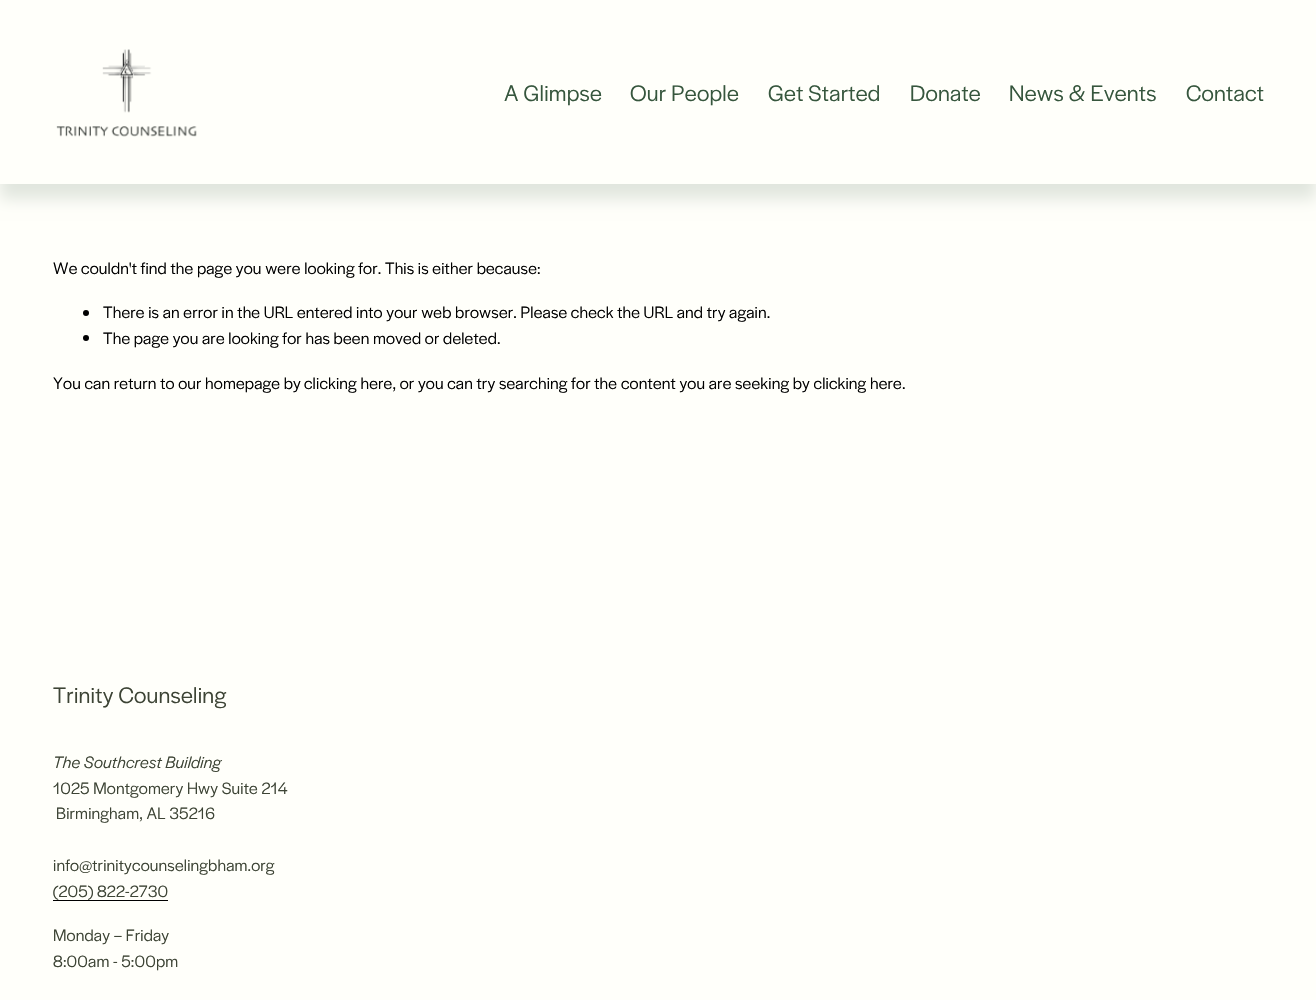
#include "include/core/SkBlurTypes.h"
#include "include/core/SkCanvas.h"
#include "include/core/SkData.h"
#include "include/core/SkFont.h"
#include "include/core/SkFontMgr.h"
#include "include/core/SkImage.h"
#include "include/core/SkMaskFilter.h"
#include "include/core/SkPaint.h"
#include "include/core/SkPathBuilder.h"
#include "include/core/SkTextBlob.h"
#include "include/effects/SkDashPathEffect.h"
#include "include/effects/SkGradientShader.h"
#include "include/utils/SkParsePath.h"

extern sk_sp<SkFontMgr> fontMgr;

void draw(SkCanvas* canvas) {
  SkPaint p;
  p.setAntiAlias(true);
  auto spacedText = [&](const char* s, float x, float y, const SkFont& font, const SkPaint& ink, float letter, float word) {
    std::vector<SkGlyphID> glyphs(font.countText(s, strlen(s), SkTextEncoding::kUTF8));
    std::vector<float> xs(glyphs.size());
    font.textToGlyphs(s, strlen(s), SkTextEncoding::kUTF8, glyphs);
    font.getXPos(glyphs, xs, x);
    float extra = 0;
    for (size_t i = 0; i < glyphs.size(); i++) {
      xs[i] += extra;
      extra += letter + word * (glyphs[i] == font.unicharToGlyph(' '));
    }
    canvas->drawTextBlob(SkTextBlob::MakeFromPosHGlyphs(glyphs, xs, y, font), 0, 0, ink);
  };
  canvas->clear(SkColorSetRGB(255, 255, 250));
  canvas->save();
  canvas->clipPath(SkPathBuilder(SkPathFillType::kEvenOdd).moveTo(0, 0).lineTo(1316, 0).lineTo(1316, 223).lineTo(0, 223).close().moveTo(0, 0).lineTo(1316, 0).lineTo(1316, 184).lineTo(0, 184).close().detach(), true);
  p.setColor(SkColorSetRGB(225, 230, 222));
  p.setMaskFilter(SkMaskFilter::MakeBlur(kNormal_SkBlurStyle, 7.5f));
  canvas->drawRect(SkRect::MakeLTRB(0, 15, 1316, 199), p);
  p.setMaskFilter(nullptr);
  canvas->restore();
  canvas->drawImageRect(SkImages::DeferredFromEncodedData(SkData::MakeFromFileName("images/1.png")), SkRect::MakeLTRB(56, 49, 197, 137), SkSamplingOptions());
  p.setColor(SK_ColorBLACK);
  canvas->drawCircle(86, 313, 3, p);
  canvas->drawCircle(86, 338, 3, p);
  canvas->drawRect(SkRect::MakeLTRB(53, 900, 168, 901), p);
  SkFont font1(fontMgr->matchFamilyStyle("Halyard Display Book", SkFontStyle::Normal()), 23.5f);
  font1.setSubpixel(true);
  p.setColor(SkColorSetRGB(54, 86, 61));
  spacedText("A Glimpse", 504, 101, font1, p, 0.25f, 0);
  spacedText("Our People", 630, 101, font1, p, 0.25f, 0);
  spacedText("Get Started", 768, 101, font1, p, 0.25f, 0);
  spacedText("Donate", 910, 101, font1, p, 0.25f, 0);
  spacedText("News & Events", 1009, 101, font1, p, 0.25f, 0);
  spacedText("Contact", 1186, 101, font1, p, 0.25f, 0);
  SkFont font2(fontMgr->matchFamilyStyle("Halyard Display Book", SkFontStyle::Normal()), 17.15f);
  font2.setSubpixel(true);
  p.setColor(SK_ColorBLACK);
  spacedText("We couldn't find the page you were looking for. This is either because:", 53, 274, font2, p, 0.17f, 0);
  spacedText("There is an error in the URL entered into your web browser. Please check the URL and try again.", 103, 318, font2, p, 0.17f, 0);
  spacedText("The page you are looking for has been moved or deleted.", 103, 344, font2, p, 0.17f, 0);
  spacedText("You can return to our homepage by", 53, 389, font2, p, 0.17f, 0);
  spacedText("clicking here, or you can try searching for the", 304, 389, font2, p, 0.17f, 0);
  spacedText("content you are seeking by clicking here.", 621, 389, font2, p, 0.17f, 0);
  p.setColor(SkColorSetRGB(61, 68, 53));
  spacedText("Trinity Counseling", 53, 703, font1, p, 0.25f, 0);
  SkFont font3(fontMgr->matchFamilyStyle("Halyard Display Book", SkFontStyle::Italic()), 17.15f);
  font3.setSubpixel(true);
  spacedText("The Southcrest Building", 53, 768, font3, p, 0.17f, 0);
  spacedText("1025 Montgomery Hwy Suite 214", 53, 794, font2, p, 0.17f, 0);
  spacedText("Birmingham, AL 35216", 56, 819, font2, p, 0.17f, 0);
  spacedText("info@trinitycounselingbham.org", 53, 871, font2, p, 0.17f, 0);
  spacedText("(205) 822-2730", 53, 897, font2, p, 0.17f, 0);
  spacedText("Monday – Friday", 53, 941, font2, p, 0.17f, 0);
  spacedText("8:00am - 5:00pm", 53, 967, font2, p, 0.17f, 0);
}
